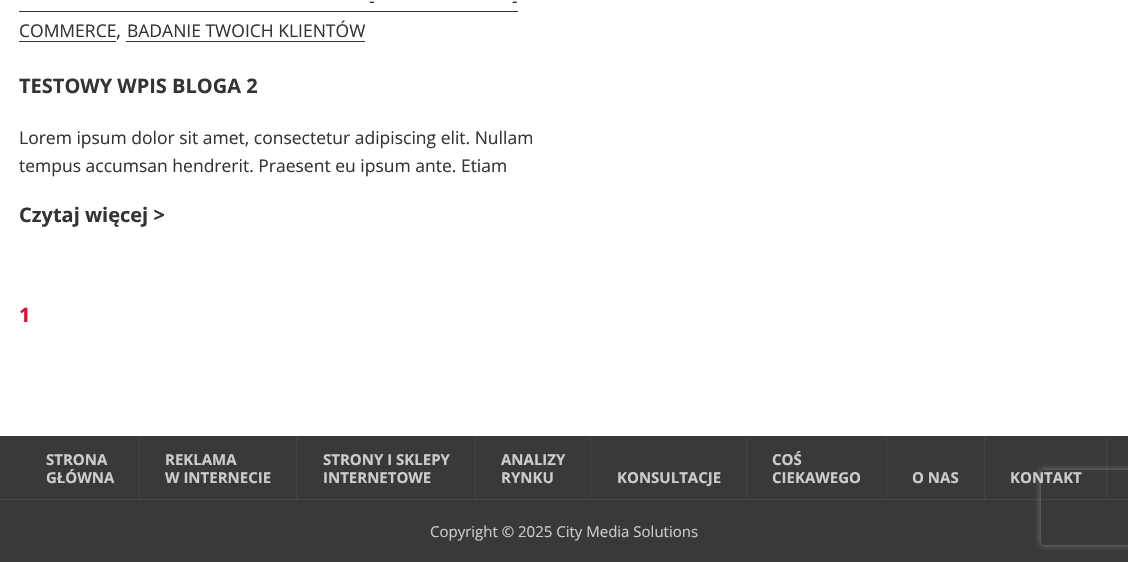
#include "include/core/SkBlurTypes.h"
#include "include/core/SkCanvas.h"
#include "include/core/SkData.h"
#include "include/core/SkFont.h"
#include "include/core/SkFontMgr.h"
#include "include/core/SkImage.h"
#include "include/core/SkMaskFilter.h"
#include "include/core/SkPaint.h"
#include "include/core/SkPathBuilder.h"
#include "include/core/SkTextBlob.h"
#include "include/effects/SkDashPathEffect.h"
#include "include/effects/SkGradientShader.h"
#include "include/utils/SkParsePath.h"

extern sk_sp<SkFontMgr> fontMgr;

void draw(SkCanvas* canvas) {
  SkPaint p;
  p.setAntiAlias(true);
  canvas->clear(SK_ColorWHITE);
  p.setColor(SkColorSetRGB(52, 52, 52));
  canvas->drawRect(SkRect::MakeLTRB(19, 11, 518, 12), p);
  canvas->drawRect(SkRect::MakeLTRB(19, 41, 116, 42), p);
  canvas->drawRect(SkRect::MakeLTRB(126, 41, 365, 42), p);
  p.setColor(SkColorSetRGB(57, 57, 57));
  canvas->drawRect(SkRect::MakeLTRB(0, 436, 1128, 562), p);
  p.setColor(SkColorSetRGB(68, 68, 68));
  canvas->drawRect(SkRect::MakeLTRB(139, 436, 140, 499), p);
  canvas->drawRect(SkRect::MakeLTRB(296, 436, 297, 499), p);
  canvas->drawRect(SkRect::MakeLTRB(475, 436, 476, 499), p);
  canvas->drawRect(SkRect::MakeLTRB(590, 436, 591, 499), p);
  canvas->drawRect(SkRect::MakeLTRB(746, 436, 747, 499), p);
  canvas->drawRect(SkRect::MakeLTRB(886, 436, 887, 499), p);
  canvas->drawRect(SkRect::MakeLTRB(984, 436, 985, 499), p);
  canvas->drawRect(SkRect::MakeLTRB(1106, 436, 1107, 499), p);
  canvas->drawRect(SkRect::MakeLTRB(0, 499, 1128, 500), p);
  canvas->save();
  canvas->clipPath(SkPathBuilder(SkPathFillType::kEvenOdd).moveTo(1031, 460).lineTo(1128, 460).lineTo(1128, 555).lineTo(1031, 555).close().moveTo(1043.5f, 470).lineTo(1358.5f, 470).cubicTo(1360, 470, 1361, 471, 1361, 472.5f).lineTo(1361, 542.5f).cubicTo(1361, 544, 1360, 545, 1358.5f, 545).lineTo(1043.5f, 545).cubicTo(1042, 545, 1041, 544, 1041, 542.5f).lineTo(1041, 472.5f).cubicTo(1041, 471, 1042, 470, 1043.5f, 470).close().detach(), true);
  p.setColor(SkColorSetRGB(128, 128, 128));
  p.setMaskFilter(SkMaskFilter::MakeBlur(kNormal_SkBlurStyle, 3));
  canvas->drawRoundRect(SkRect::MakeLTRB(1041, 470, 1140, 545), 2.5f, 2.5f, p);
  p.setMaskFilter(nullptr);
  canvas->restore();
  SkFont font1(fontMgr->matchFamilyStyle("Open Sans", SkFontStyle::Normal()), 17.5f);
  font1.setSubpixel(true);
  p.setColor(SkColorSetRGB(52, 52, 52));
  canvas->drawString("-", 369, 7, font1, p);
  canvas->drawString("-", 512, 7, font1, p);
  canvas->drawString("COMMERCE", 19, 37, font1, p);
  SkFont font2(fontMgr->matchFamilyStyle("Open Sans", SkFontStyle::Normal()), 20);
  font2.setSubpixel(true);
  canvas->drawString(",", 116, 37, font2, p);
  canvas->drawString("BADANIE TWOICH KLIENTÓW", 127, 37, font1, p);
  SkFont font3(fontMgr->matchFamilyStyle("Open Sans", SkFontStyle::Bold()), 20);
  font3.setSubpixel(true);
  canvas->drawString("TESTOWY WPIS BLOGA 2", 19, 93, font3, p);
  canvas->drawString("Lorem ipsum dolor sit amet, consectetur adipiscing elit. Nullam", 19, 144, font1, p);
  canvas->drawString("tempus accumsan hendrerit. Praesent eu ipsum ante. Etiam", 19, 172, font1, p);
  canvas->drawString("Czytaj więcej >", 19, 222, font3, p);
  p.setColor(SkColorSetRGB(227, 9, 48));
  canvas->drawString("1", 19, 322, font3, p);
  SkFont font4(fontMgr->matchFamilyStyle("Open Sans", SkFontStyle::Bold()), 15);
  font4.setSubpixel(true);
  p.setColor(SkColorSetRGB(204, 204, 204));
  canvas->drawString("STRONA", 46, 465, font4, p);
  canvas->drawString("GŁÓWNA", 46, 483, font4, p);
  canvas->drawString("REKLAMA", 165, 465, font4, p);
  canvas->drawString("W INTERNECIE", 165, 483, font4, p);
  canvas->drawString("STRONY I SKLEPY", 323, 465, font4, p);
  canvas->drawString("INTERNETOWE", 323, 483, font4, p);
  canvas->drawString("ANALIZY", 501, 465, font4, p);
  canvas->drawString("RYNKU", 501, 483, font4, p);
  canvas->drawString("KONSULTACJE", 617, 483, font4, p);
  canvas->drawString("COŚ", 772, 465, font4, p);
  canvas->drawString("CIEKAWEGO", 772, 483, font4, p);
  canvas->drawString("O NAS", 912, 483, font4, p);
  canvas->drawString("KONTAKT", 1010, 483, font4, p);
  SkFont font5(fontMgr->matchFamilyStyle("Open Sans", SkFontStyle::Normal()), 15);
  font5.setSubpixel(true);
  canvas->drawString("Copyright © 2025 City Media Solutions", 430, 537, font5, p);
}
